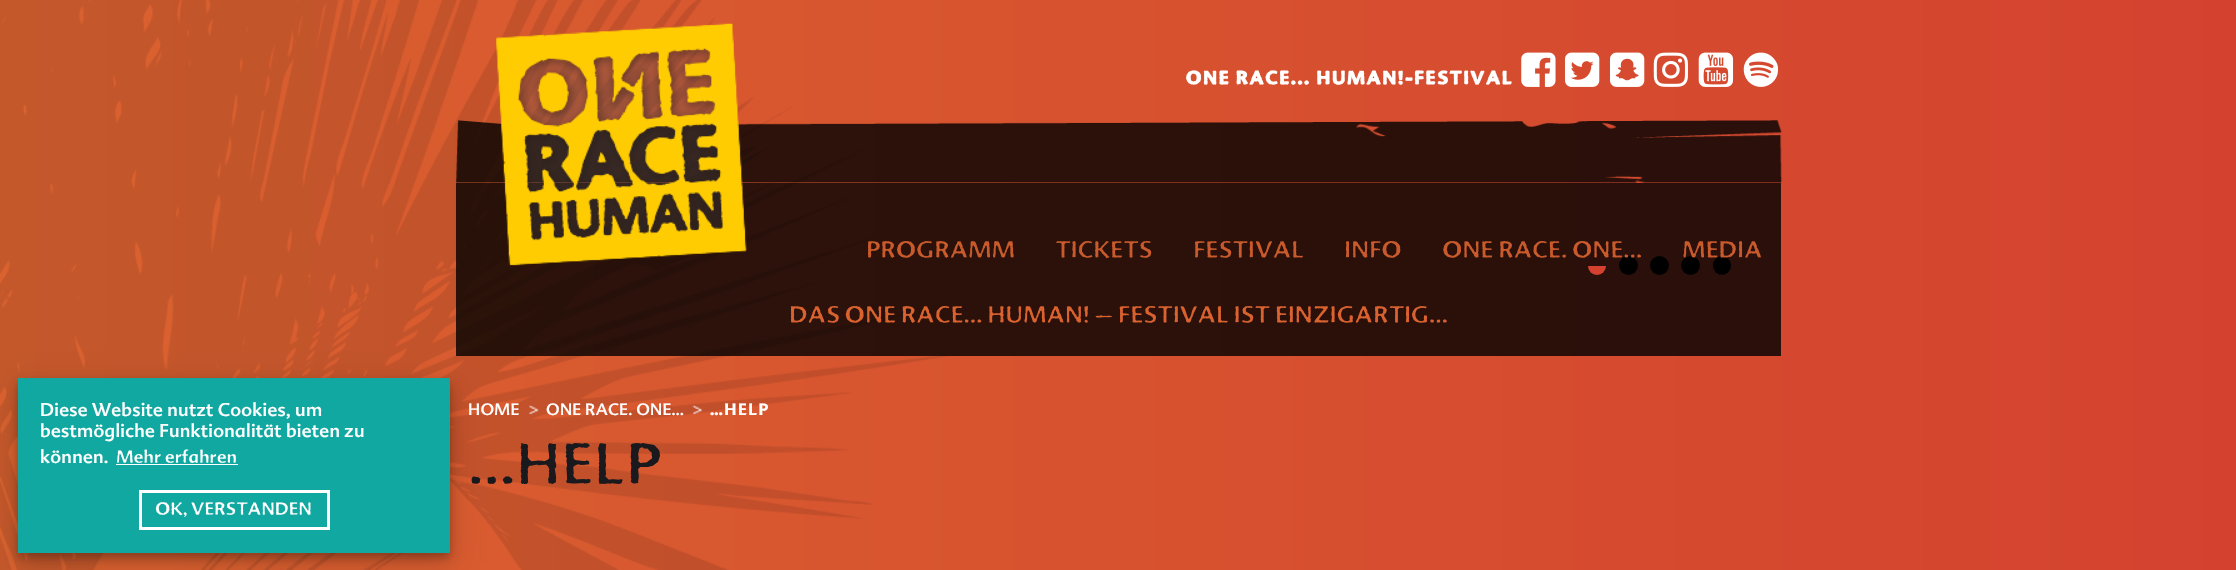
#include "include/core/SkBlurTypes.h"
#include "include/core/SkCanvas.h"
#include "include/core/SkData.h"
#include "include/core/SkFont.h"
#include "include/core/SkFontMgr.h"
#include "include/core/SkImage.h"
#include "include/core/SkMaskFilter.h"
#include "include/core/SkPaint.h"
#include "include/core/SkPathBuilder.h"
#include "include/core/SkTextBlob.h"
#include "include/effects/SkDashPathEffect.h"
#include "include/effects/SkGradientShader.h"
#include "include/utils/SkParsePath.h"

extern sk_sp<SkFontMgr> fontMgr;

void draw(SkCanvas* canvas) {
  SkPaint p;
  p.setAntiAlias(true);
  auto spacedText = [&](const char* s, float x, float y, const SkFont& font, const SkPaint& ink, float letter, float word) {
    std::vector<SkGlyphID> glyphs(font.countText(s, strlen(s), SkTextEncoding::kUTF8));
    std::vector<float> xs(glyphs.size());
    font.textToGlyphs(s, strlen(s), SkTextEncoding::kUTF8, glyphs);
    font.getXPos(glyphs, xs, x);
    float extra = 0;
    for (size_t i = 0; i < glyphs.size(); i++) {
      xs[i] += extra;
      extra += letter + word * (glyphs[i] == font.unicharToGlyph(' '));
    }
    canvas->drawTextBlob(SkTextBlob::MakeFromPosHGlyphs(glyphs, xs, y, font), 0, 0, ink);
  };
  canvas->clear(SK_ColorWHITE);
  {
    const SkColor colors[] = {SkColorSetRGB(218, 98, 47), SkColorSetRGB(212, 66, 47)};
    const float stops[] = {0, 1};
    const SkPoint ends[] = {{0, 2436}, {2236, 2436}};
    p.setShader(SkGradientShader::MakeLinear(ends, colors, stops, 2, SkTileMode::kClamp));
    p.setAlpha(255);
  }
  canvas->drawRect(SkRect::MakeLTRB(0, 0, 2236, 570), p);
  canvas->drawImageRect(SkImages::DeferredFromEncodedData(SkData::MakeFromFileName("images/1.png")), SkRect::MakeLTRB(0, 0, 960, 570), SkSamplingOptions());
  p.setShader(nullptr);
  p.setColor(SkColorSetARGB(59, 0, 0, 0));
  p.setMaskFilter(SkMaskFilter::MakeBlur(kNormal_SkBlurStyle, 4));
  canvas->drawRect(SkRect::MakeLTRB(18, 383, 450, 558), p);
  p.setMaskFilter(nullptr);
  p.setColor(SkColorSetARGB(204, 0, 0, 0));
  canvas->drawRect(SkRect::MakeLTRB(456, 266, 1781, 356), p);
  p.setColor(SkColorSetARGB(48, 0, 0, 0));
  p.setMaskFilter(SkMaskFilter::MakeBlur(kNormal_SkBlurStyle, 12.5f));
  canvas->drawRect(SkRect::MakeLTRB(18, 388, 450, 563), p);
  p.setMaskFilter(nullptr);
  p.setColor(SkColorSetRGB(16, 168, 160));
  canvas->drawRect(SkRect::MakeLTRB(18, 378, 450, 553), p);
  p.setColor(SK_ColorWHITE);
  canvas->drawRect(SkRect::MakeLTRB(116, 464, 238, 465), p);
  p.setStyle(SkPaint::kStroke_Style);
  p.setStrokeWidth(3);
  canvas->drawRect(SkRect::MakeLTRB(140.5f, 491.5f, 328.5f, 528.5f), p);
  canvas->drawImageRect(SkImages::DeferredFromEncodedData(SkData::MakeFromFileName("images/2.png")), SkRect::MakeLTRB(1521, 52, 1556, 87), SkSamplingOptions());
  canvas->drawImageRect(SkImages::DeferredFromEncodedData(SkData::MakeFromFileName("images/3.png")), SkRect::MakeLTRB(1565, 52, 1600, 87), SkSamplingOptions());
  canvas->drawImageRect(SkImages::DeferredFromEncodedData(SkData::MakeFromFileName("images/4.png")), SkRect::MakeLTRB(1610, 52, 1645, 87), SkSamplingOptions());
  canvas->drawImageRect(SkImages::DeferredFromEncodedData(SkData::MakeFromFileName("images/5.png")), SkRect::MakeLTRB(1653, 52, 1689, 87), SkSamplingOptions());
  canvas->drawImageRect(SkImages::DeferredFromEncodedData(SkData::MakeFromFileName("images/6.png")), SkRect::MakeLTRB(1698, 52, 1734, 87), SkSamplingOptions());
  canvas->drawImageRect(SkImages::DeferredFromEncodedData(SkData::MakeFromFileName("images/7.png")), SkRect::MakeLTRB(1743, 52, 1779, 87), SkSamplingOptions());
  canvas->drawImageRect(SkImages::DeferredFromEncodedData(SkData::MakeFromFileName("images/8.png")), SkRect::MakeLTRB(456, 120, 1782, 183), SkSamplingOptions());
  p.setStyle(SkPaint::kFill_Style);
  p.setColor(SkColorSetRGB(212, 66, 47));
  canvas->drawRoundRect(SkRect::MakeLTRB(1588, 256, 1606, 275), 9, 9, p);
  p.setColor(SK_ColorBLACK);
  canvas->drawCircle(1628.5f, 265.5f, 9.5f, p);
  canvas->drawCircle(1659.5f, 265.5f, 9.5f, p);
  canvas->drawCircle(1690.5f, 265.5f, 9.5f, p);
  canvas->drawRoundRect(SkRect::MakeLTRB(1713, 256, 1731, 275), 9, 9, p);
  p.setColor(SkColorSetARGB(204, 0, 0, 0));
  canvas->drawRect(SkRect::MakeLTRB(456, 183, 1781, 266), p);
  canvas->drawImageRect(SkImages::DeferredFromEncodedData(SkData::MakeFromFileName("images/9.png")), SkRect::MakeLTRB(496, 23, 747, 266), SkSamplingOptions());
  canvas->drawImageRect(SkImages::DeferredFromEncodedData(SkData::MakeFromFileName("images/10.png")), SkRect::MakeLTRB(528, 405, 539, 415), SkSamplingOptions());
  canvas->drawImageRect(SkImages::DeferredFromEncodedData(SkData::MakeFromFileName("images/11.png")), SkRect::MakeLTRB(692, 405, 703, 415), SkSamplingOptions());
  SkFont font1(fontMgr->matchFamilyStyle("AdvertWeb", SkFontStyle::Normal()), 18);
  font1.setSubpixel(true);
  p.setColor(SK_ColorWHITE);
  spacedText("Diese Website nutzt Cookies, um", 40, 416, font1, p, 0.3f, 0);
  spacedText("bestmögliche Funktionalität bieten zu", 40, 437, font1, p, 0.3f, 0);
  spacedText("können.", 40, 463, font1, p, 0.3f, 0);
  SkFont font2(fontMgr->matchFamilyStyle("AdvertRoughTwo", SkFontStyle::Normal()), 18);
  font2.setSubpixel(true);
  spacedText("Mehr erfahren", 116, 463, font2, p, -0.25f, 0);
  spacedText("OK, VERSTANDEN", 155, 515, font2, p, -0.25f, 0);
  SkFont font3(fontMgr->matchFamilyStyle("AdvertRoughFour", SkFontStyle::Normal()), 18);
  font3.setSubpixel(true);
  spacedText("ONE RACE... HUMAN!-FESTIVAL", 1186, 84, font3, p, 1.8f, 0);
  SkFont font4(fontMgr->matchFamilyStyle("AdvertRoughTwo", SkFontStyle::Normal()), 24);
  font4.setSubpixel(true);
  p.setColor(SkColorSetRGB(201, 90, 43));
  spacedText("PROGRAMM", 866, 258, font4, p, -0.25f, 0);
  spacedText("TICKETS", 1055, 258, font4, p, -0.25f, 0);
  spacedText("FESTIVAL", 1193, 258, font4, p, -0.25f, 0);
  spacedText("INFO", 1344, 258, font4, p, -0.25f, 0);
  spacedText("ONE RACE. ONE…", 1442, 258, font4, p, -0.25f, 0);
  spacedText("MEDIA", 1682, 258, font4, p, -0.25f, 0);
  p.setColor(SkColorSetRGB(218, 98, 47));
  spacedText("DAS ONE RACE… HUMAN! – FESTIVAL IST EINZIGARTIG…", 789, 323, font4, p, -0.25f, 0);
  SkFont font5(fontMgr->matchFamilyStyle("AdvertWeb", SkFontStyle::Normal()), 16);
  font5.setSubpixel(true);
  p.setColor(SK_ColorWHITE);
  spacedText("HOME", 468, 415, font5, p, 0.25f, 0);
  spacedText("ONE RACE. ONE…", 546, 415, font5, p, 0.25f, 0);
  SkFont font6(fontMgr->matchFamilyStyle("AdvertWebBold", SkFontStyle::Bold()), 16);
  font6.setSubpixel(true);
  spacedText("…HELP", 710, 415, font6, p, 1.5f, 0);
  SkFont font7(fontMgr->matchFamilyStyle("AdvertRoughTwo", SkFontStyle::Normal()), 60);
  font7.setSubpixel(true);
  p.setColor(SkColorSetRGB(25, 25, 30));
  spacedText("…HELP", 468, 485, font7, p, -0.5f, 0);
}
